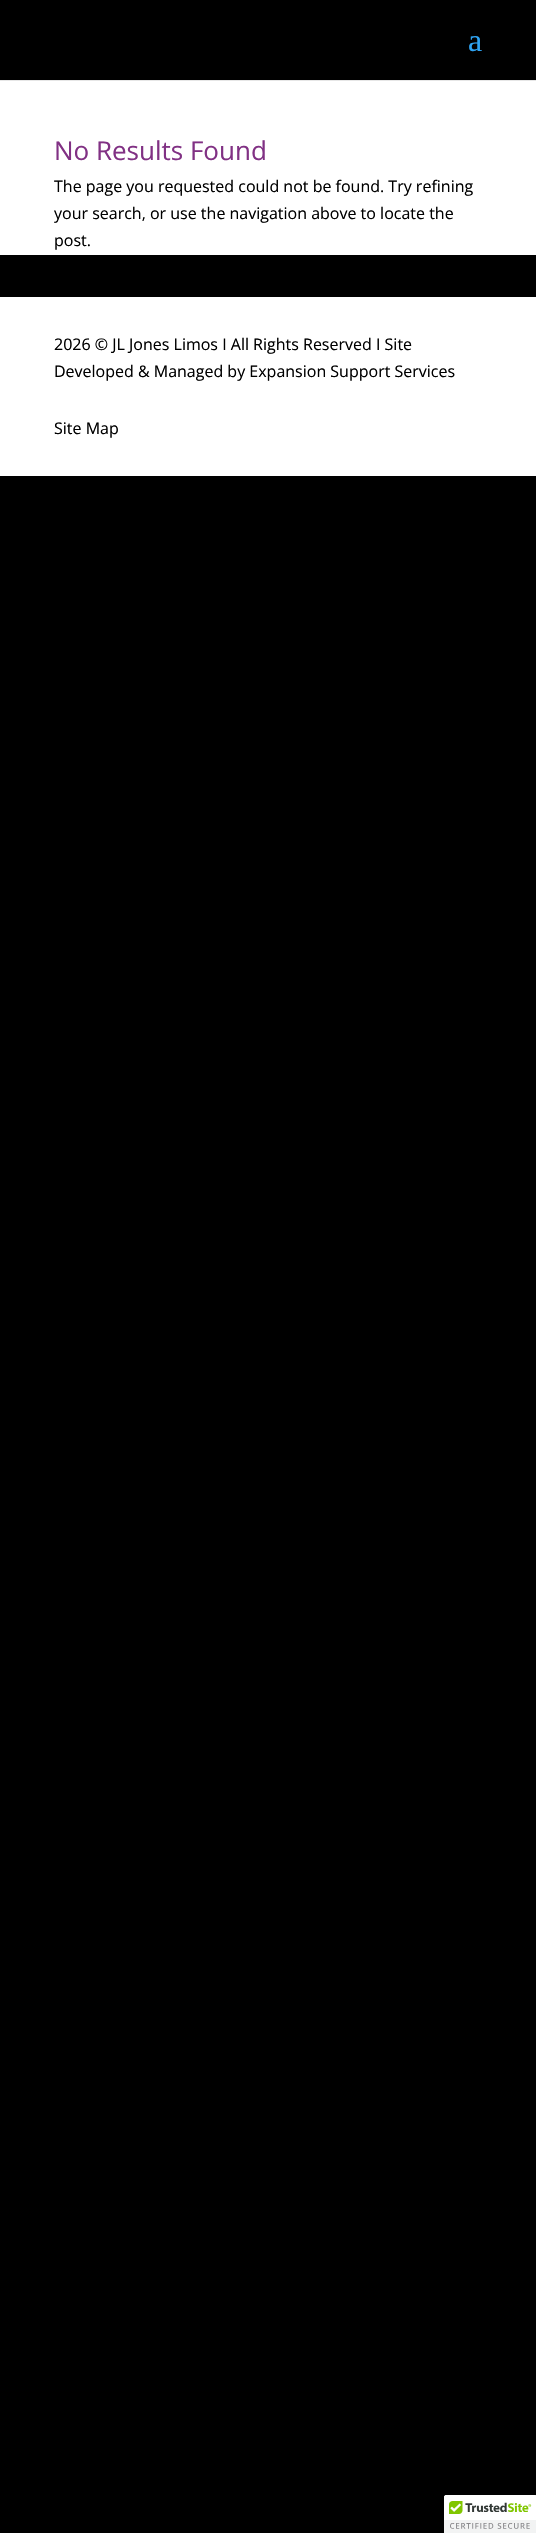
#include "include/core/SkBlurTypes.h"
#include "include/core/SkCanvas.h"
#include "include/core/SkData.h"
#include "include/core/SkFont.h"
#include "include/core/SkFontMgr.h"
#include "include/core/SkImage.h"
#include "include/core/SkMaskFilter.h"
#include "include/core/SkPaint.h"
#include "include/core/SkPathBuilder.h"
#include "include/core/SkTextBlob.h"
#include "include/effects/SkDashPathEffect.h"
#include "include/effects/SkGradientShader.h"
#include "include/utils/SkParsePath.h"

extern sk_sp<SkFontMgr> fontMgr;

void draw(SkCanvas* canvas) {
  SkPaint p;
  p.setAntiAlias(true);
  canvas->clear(SK_ColorBLACK);
  p.setColor(SkColorSetRGB(230, 230, 230));
  canvas->drawRect(SkRect::MakeLTRB(0, 80, 536, 81), p);
  p.setColor(SK_ColorWHITE);
  canvas->drawRect(SkRect::MakeLTRB(0, 81, 536, 255), p);
  canvas->drawRect(SkRect::MakeLTRB(0, 297, 536, 476), p);
  canvas->drawPath(SkPathBuilder().moveTo(446, 2495).lineTo(536, 2495).lineTo(536, 2533).lineTo(444, 2533).lineTo(444, 2497).cubicTo(444, 2496, 445, 2495, 446, 2495).close().detach(), p);
  canvas->drawImageRect(SkImages::DeferredFromEncodedData(SkData::MakeFromFileName("images/1.png")), SkRect::MakeLTRB(444, 2495, 536, 2533), SkSamplingOptions());
  SkFont font1(fontMgr->matchFamilyStyle("Liberation Serif", SkFontStyle::Normal()), 32);
  font1.setSubpixel(true);
  p.setColor(SkColorSetRGB(46, 163, 242));
  canvas->drawString("a", 468, 51, font1, p);
  SkFont font2(fontMgr->matchFamilyStyle("Open Sans", SkFontStyle::Normal()), 26);
  font2.setSubpixel(true);
  p.setColor(SkColorSetRGB(129, 49, 132));
  canvas->drawString("No Results Found", 54, 160, font2, p);
  SkFont font3(fontMgr->matchFamilyStyle("Open Sans", SkFontStyle::Normal()), 16);
  font3.setSubpixel(true);
  p.setColor(SK_ColorBLACK);
  canvas->drawString("The page you requested could not be found. Try refining", 54, 192, font3, p);
  canvas->drawString("your search, or use the navigation above to locate the", 54, 219, font3, p);
  canvas->drawString("post.", 54, 246, font3, p);
  canvas->drawString("2026 © JL Jones Limos I All Rights Reserved I Site", 54, 350, font3, p);
  canvas->drawString("Developed & Managed by Expansion Support Services", 54, 377, font3, p);
  canvas->drawString("Site Map", 54, 434, font3, p);
}
